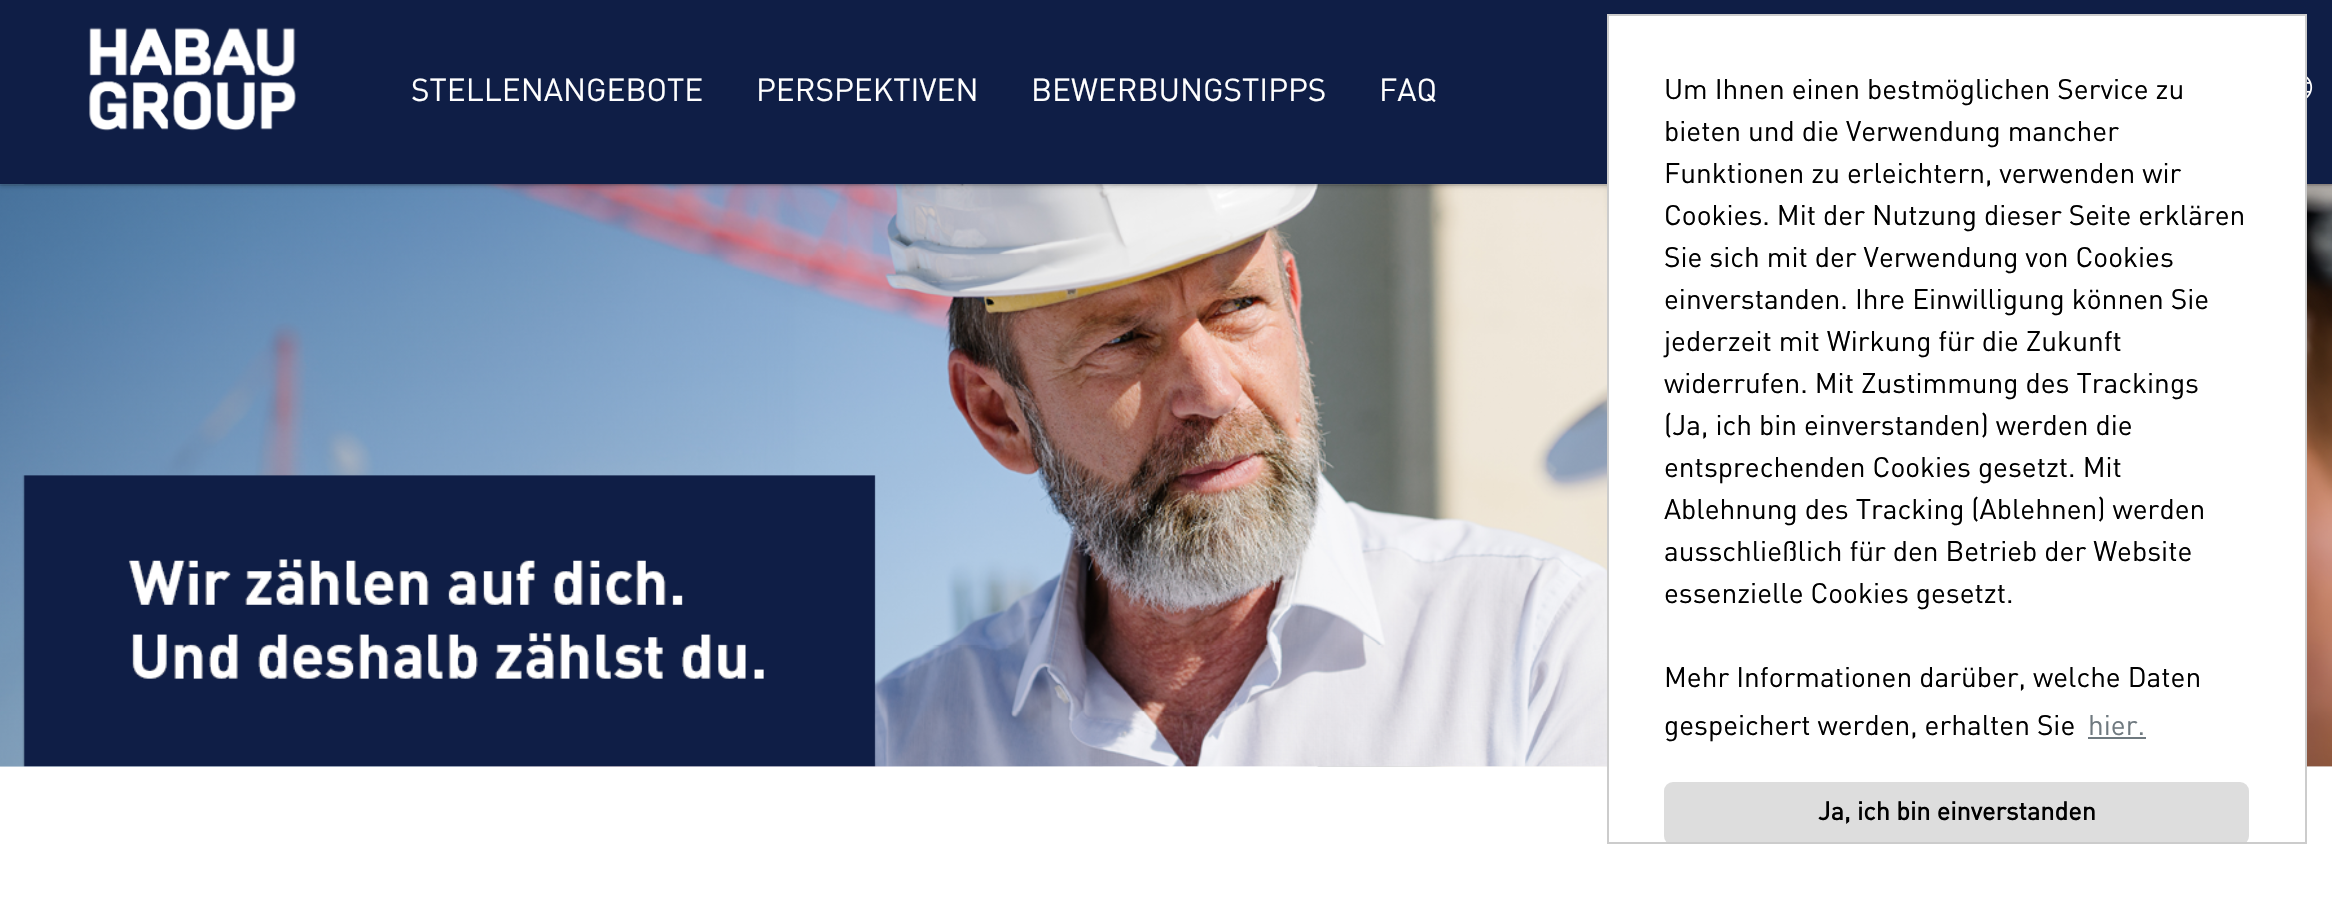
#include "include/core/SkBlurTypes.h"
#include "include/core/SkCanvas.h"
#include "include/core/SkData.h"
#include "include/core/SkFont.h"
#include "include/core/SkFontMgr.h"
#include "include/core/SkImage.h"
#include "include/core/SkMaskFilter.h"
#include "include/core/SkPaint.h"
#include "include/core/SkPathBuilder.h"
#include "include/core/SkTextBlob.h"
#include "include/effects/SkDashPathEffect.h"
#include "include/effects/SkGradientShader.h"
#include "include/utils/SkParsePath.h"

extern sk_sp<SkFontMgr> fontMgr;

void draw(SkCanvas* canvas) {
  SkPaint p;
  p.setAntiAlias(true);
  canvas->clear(SK_ColorWHITE);
  canvas->drawImageRect(SkImages::DeferredFromEncodedData(SkData::MakeFromFileName("images/3.png")), SkRect::MakeLTRB(0, 184, 2332, 767), SkSamplingOptions());
  p.setStyle(SkPaint::kStroke_Style);
  p.setStrokeWidth(2);
  p.setColor(SkColorSetARGB(20, 0, 0, 0));
  canvas->drawRect(SkRect::MakeLTRB(-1, -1, 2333, 185), p);
  p.setStyle(SkPaint::kFill_Style);
  p.setColor(SkColorSetARGB(41, 0, 0, 0));
  p.setMaskFilter(SkMaskFilter::MakeBlur(kNormal_SkBlurStyle, 2));
  canvas->drawRect(SkRect::MakeLTRB(0, 4, 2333, 187), p);
  p.setMaskFilter(nullptr);
  p.setColor(SkColorSetRGB(15, 30, 70));
  canvas->drawRect(SkRect::MakeLTRB(0, 0, 2332, 184), p);
  canvas->drawImageRect(SkImages::DeferredFromEncodedData(SkData::MakeFromFileName("images/1.png")), SkRect::MakeLTRB(89, 27, 296, 131), SkSamplingOptions());
  canvas->drawImageRect(SkImages::DeferredFromEncodedData(SkData::MakeFromFileName("images/2.png")), SkRect::MakeLTRB(2307, 76, 2313, 99), SkSamplingOptions());
  p.setColor(SK_ColorWHITE);
  canvas->drawRect(SkRect::MakeLTRB(1609, 16, 2305, 767), p);
  p.setStyle(SkPaint::kStroke_Style);
  p.setColor(SkColorSetRGB(204, 204, 204));
  canvas->drawRect(SkRect::MakeLTRB(1608, 15, 2306, 843), p);
  p.setStyle(SkPaint::kFill_Style);
  p.setColor(SkColorSetRGB(111, 121, 127));
  canvas->drawRect(SkRect::MakeLTRB(2088, 737, 2146, 739), p);
  canvas->save();
  canvas->clipRect(SkRect::MakeLTRB(1608, 16, 2305, 842));
  p.setColor(SkColorSetRGB(221, 221, 221));
  canvas->drawRoundRect(SkRect::MakeLTRB(1664, 782, 2249, 845), 9, 9, p);
  canvas->restore();
  SkFont font1(fontMgr->matchFamilyStyle("DIN", SkFontStyle::Normal()), 31.5f);
  font1.setSubpixel(true);
  p.setColor(SK_ColorWHITE);
  canvas->drawString("STELLENANGEBOTE", 411, 101, font1, p);
  canvas->drawString("PERSPEKTIVEN", 756, 101, font1, p);
  canvas->drawString("BEWERBUNGSTIPPS", 1031, 101, font1, p);
  canvas->drawString("FAQ", 1379, 101, font1, p);
  SkFont font2(fontMgr->matchFamilyStyle("DIN", SkFontStyle::Normal()), 28);
  font2.setSubpixel(true);
  p.setColor(SK_ColorBLACK);
  canvas->drawString("Um Ihnen einen bestmöglichen Service zu", 1664, 99, font2, p);
  canvas->drawString("bieten und die Verwendung mancher", 1664, 141, font2, p);
  canvas->drawString("Funktionen zu erleichtern, verwenden wir", 1664, 183, font2, p);
  canvas->drawString("Cookies. Mit der Nutzung dieser Seite erklären", 1664, 225, font2, p);
  canvas->drawString("Sie sich mit der Verwendung von Cookies", 1664, 267, font2, p);
  canvas->drawString("einverstanden. Ihre Einwilligung können Sie", 1664, 309, font2, p);
  canvas->drawString("jederzeit mit Wirkung für die Zukunft", 1664, 351, font2, p);
  canvas->drawString("widerrufen. Mit Zustimmung des Trackings", 1664, 393, font2, p);
  canvas->drawString("(Ja, ich bin einverstanden) werden die", 1664, 435, font2, p);
  canvas->drawString("entsprechenden Cookies gesetzt. Mit", 1664, 477, font2, p);
  canvas->drawString("Ablehnung des Tracking (Ablehnen) werden", 1664, 519, font2, p);
  canvas->drawString("ausschließlich für den Betrieb der Website", 1664, 561, font2, p);
  canvas->drawString("essenzielle Cookies gesetzt.", 1664, 603, font2, p);
  canvas->drawString("Mehr Informationen darüber, welche Daten", 1664, 687, font2, p);
  canvas->drawString("gespeichert werden, erhalten Sie", 1664, 735, font2, p);
  p.setColor(SkColorSetRGB(111, 121, 127));
  canvas->drawString("hier.", 2088, 735, font2, p);
  SkFont font3(fontMgr->matchFamilyStyle("DIN", SkFontStyle::Bold()), 25.25f);
  font3.setSubpixel(true);
  p.setColor(SK_ColorBLACK);
  canvas->drawString("Ja, ich bin einverstanden", 1818, 820, font3, p);
}
